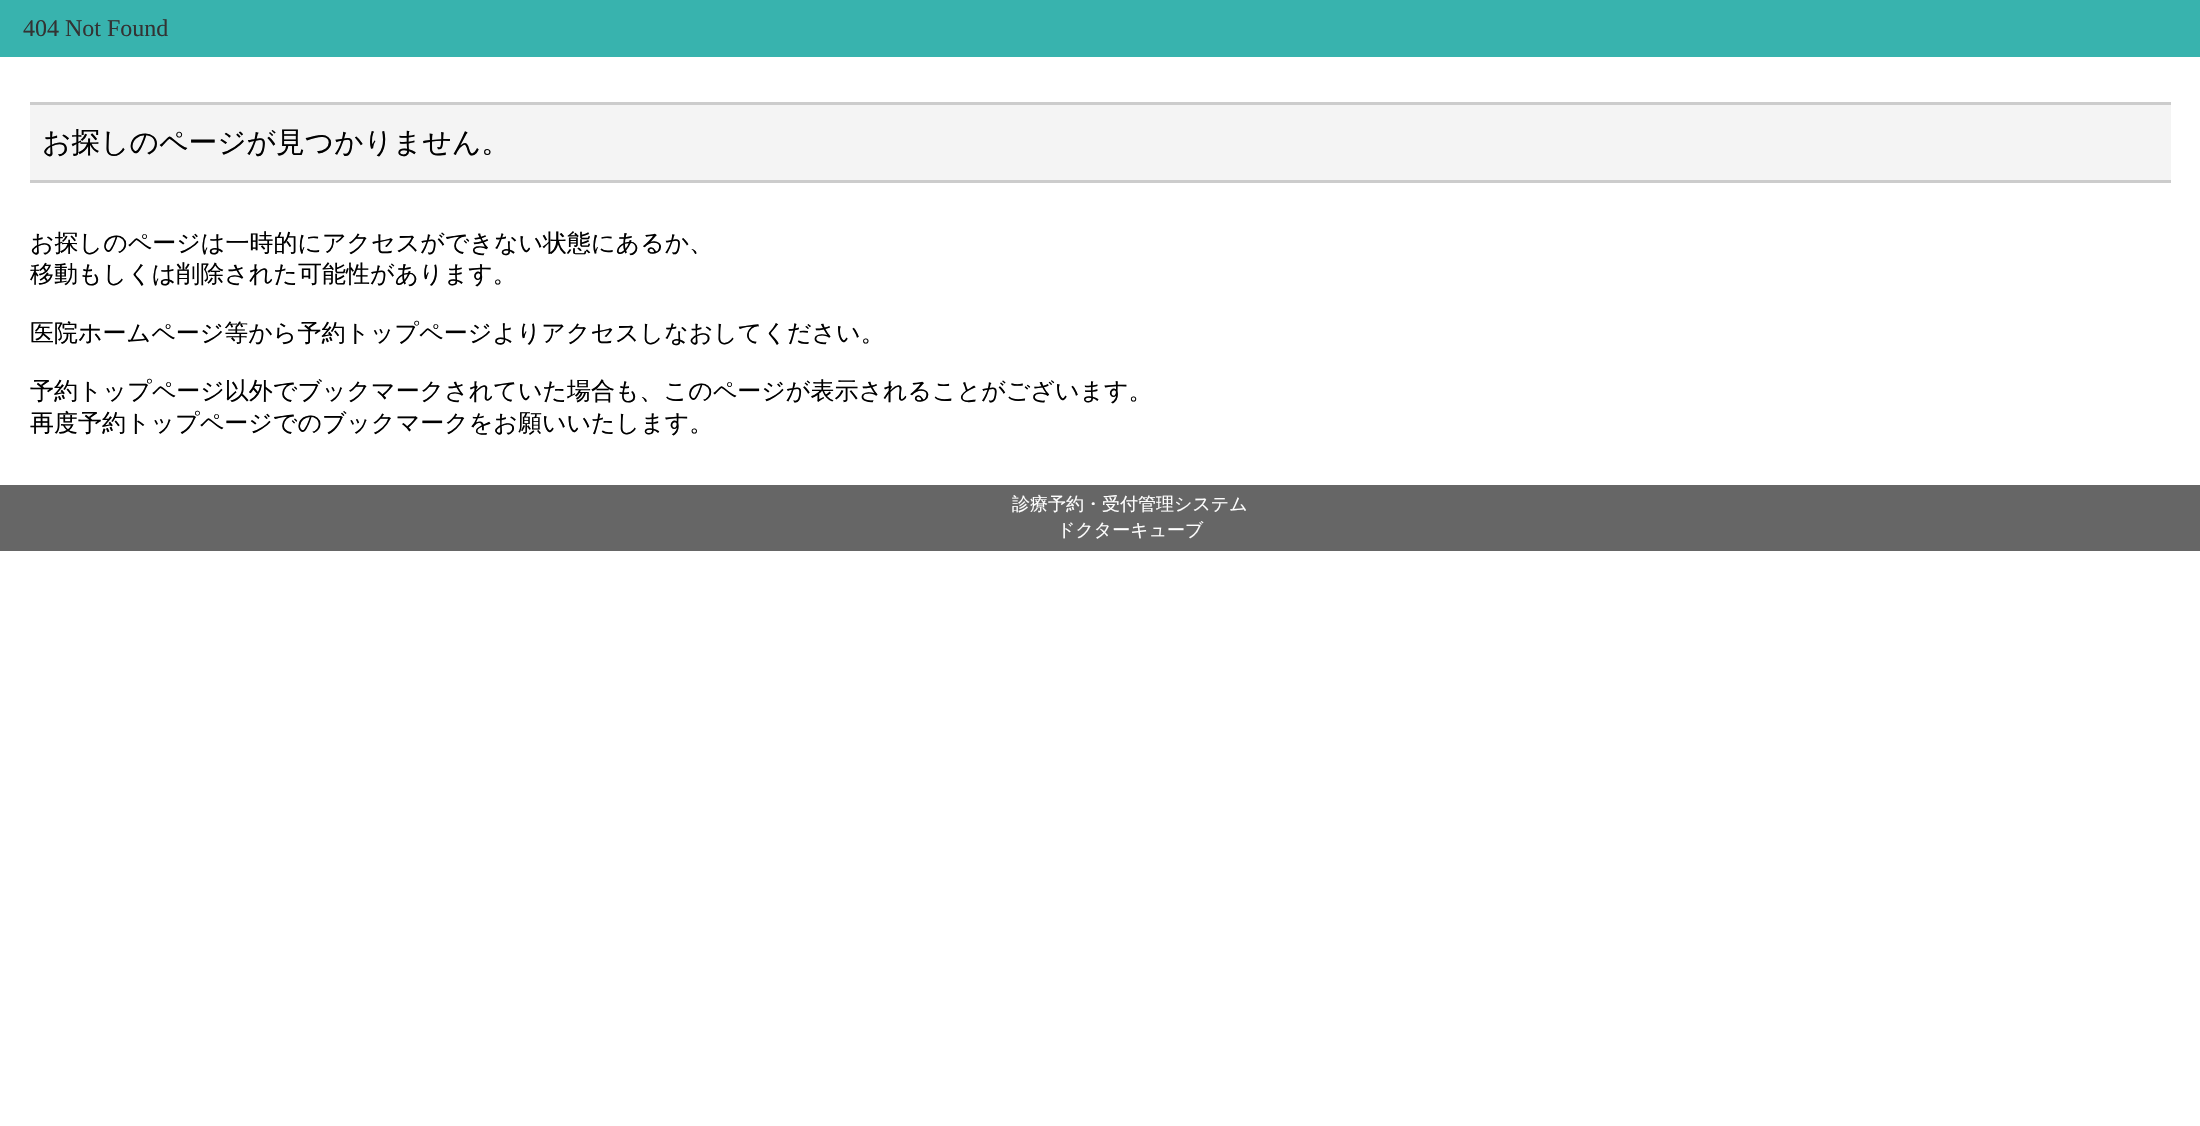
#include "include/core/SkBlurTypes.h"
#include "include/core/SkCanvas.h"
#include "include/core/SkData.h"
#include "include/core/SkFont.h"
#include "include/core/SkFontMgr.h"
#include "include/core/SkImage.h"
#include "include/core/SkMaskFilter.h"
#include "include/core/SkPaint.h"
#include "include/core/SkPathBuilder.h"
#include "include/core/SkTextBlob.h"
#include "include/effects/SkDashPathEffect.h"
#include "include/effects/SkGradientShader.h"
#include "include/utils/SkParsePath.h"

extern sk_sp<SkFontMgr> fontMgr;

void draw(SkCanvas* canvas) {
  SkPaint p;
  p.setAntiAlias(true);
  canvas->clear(SK_ColorWHITE);
  p.setColor(SkColorSetRGB(56, 179, 174));
  canvas->drawRect(SkRect::MakeLTRB(0, 0, 2200, 57), p);
  p.setColor(SkColorSetRGB(244, 244, 244));
  canvas->drawRect(SkRect::MakeLTRB(30, 105, 2171, 180), p);
  p.setColor(SkColorSetRGB(204, 204, 204));
  canvas->drawRect(SkRect::MakeLTRB(30, 102, 2171, 105), p);
  canvas->drawRect(SkRect::MakeLTRB(30, 180, 2171, 183), p);
  p.setColor(SkColorSetRGB(102, 102, 102));
  canvas->drawRect(SkRect::MakeLTRB(0, 485, 2200, 551), p);
  SkFont font1(fontMgr->matchFamilyStyle("Liberation Serif", SkFontStyle::Normal()), 24);
  font1.setSubpixel(true);
  p.setColor(SkColorSetRGB(51, 51, 51));
  canvas->drawString("404 Not Found", 23, 36, font1, p);
  SkFont font2(fontMgr->matchFamilyStyle("WenQuanYi Zen Hei", SkFontStyle(500, SkFontStyle::kNormal_Width, SkFontStyle::kUpright_Slant)), 28.75f);
  font2.setSubpixel(true);
  p.setColor(SK_ColorBLACK);
  canvas->drawString("お探しのページが見つかりません。", 42, 152, font2, p);
  SkFont font3(fontMgr->matchFamilyStyle("WenQuanYi Zen Hei", SkFontStyle(500, SkFontStyle::kNormal_Width, SkFontStyle::kUpright_Slant)), 24);
  font3.setSubpixel(true);
  canvas->drawString("お探しのページは一時的にアクセスができない状態にあるか、", 30, 251, font3, p);
  canvas->drawString("移動もしくは削除された可能性があります。", 30, 282, font3, p);
  canvas->drawString("医院ホームページ等から予約トップページよりアクセスしなおしてください。", 30, 341, font3, p);
  canvas->drawString("予約トップページ以外でブックマークされていた場合も、このページが表示されることがございます。", 30, 399, font3, p);
  canvas->drawString("再度予約トップページでのブックマークをお願いいたします。", 30, 431, font3, p);
  SkFont font4(fontMgr->matchFamilyStyle("WenQuanYi Zen Hei", SkFontStyle(500, SkFontStyle::kNormal_Width, SkFontStyle::kUpright_Slant)), 18);
  font4.setSubpixel(true);
  p.setColor(SK_ColorWHITE);
  canvas->drawString("診療予約・受付管理システム", 1012, 510, font4, p);
  canvas->drawString("ドクターキューブ", 1057, 536, font4, p);
}
